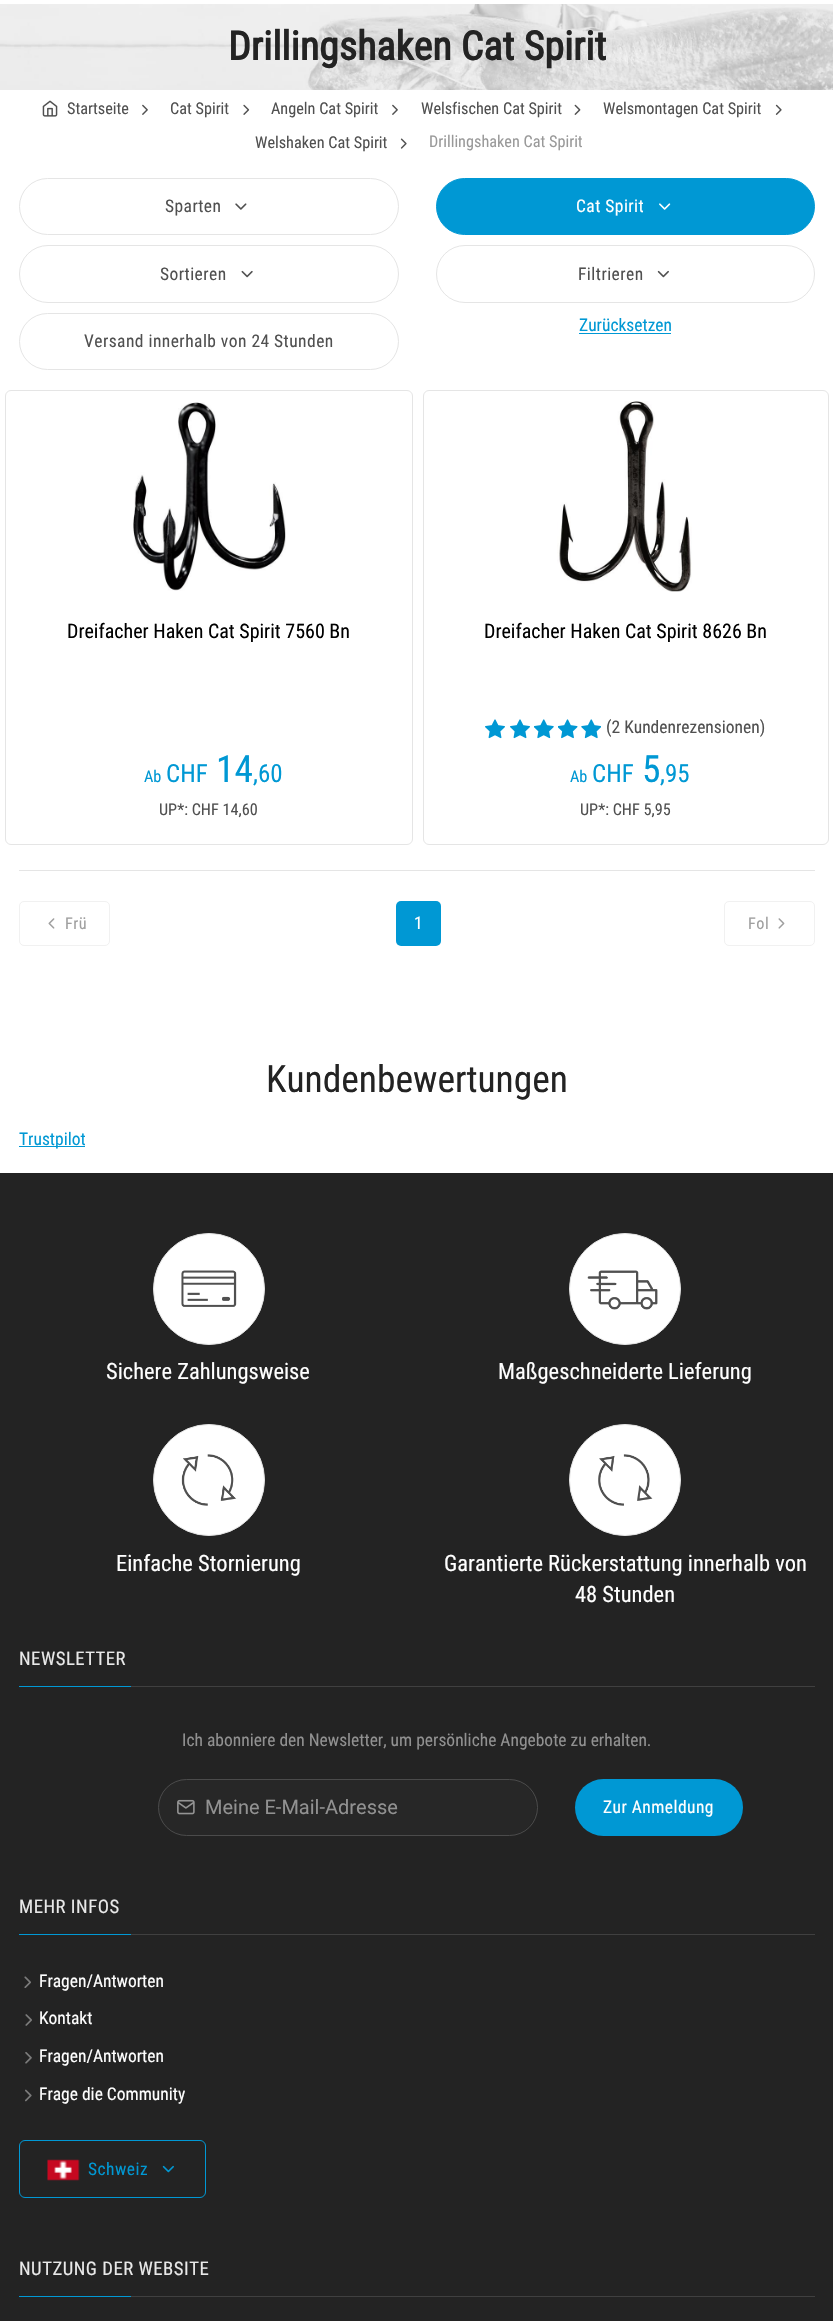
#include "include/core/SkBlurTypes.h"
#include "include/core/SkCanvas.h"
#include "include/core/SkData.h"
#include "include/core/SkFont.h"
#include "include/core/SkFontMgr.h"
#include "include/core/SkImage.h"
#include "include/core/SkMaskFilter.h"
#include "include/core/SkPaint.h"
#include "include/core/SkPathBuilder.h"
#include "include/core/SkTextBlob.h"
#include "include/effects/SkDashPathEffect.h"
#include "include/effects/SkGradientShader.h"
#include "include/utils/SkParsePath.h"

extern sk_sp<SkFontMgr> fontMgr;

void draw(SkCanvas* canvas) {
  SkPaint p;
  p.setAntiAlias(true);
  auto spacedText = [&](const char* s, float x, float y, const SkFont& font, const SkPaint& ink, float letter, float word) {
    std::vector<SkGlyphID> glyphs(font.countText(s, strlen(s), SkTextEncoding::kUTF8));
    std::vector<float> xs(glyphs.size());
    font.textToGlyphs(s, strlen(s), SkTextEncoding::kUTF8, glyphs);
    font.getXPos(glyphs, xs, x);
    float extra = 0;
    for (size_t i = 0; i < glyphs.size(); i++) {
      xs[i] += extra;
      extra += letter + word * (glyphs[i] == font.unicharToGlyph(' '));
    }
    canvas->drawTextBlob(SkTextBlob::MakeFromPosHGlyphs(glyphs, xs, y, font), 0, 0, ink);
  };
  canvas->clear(SK_ColorWHITE);
  canvas->drawImageRect(SkImages::DeferredFromEncodedData(SkData::MakeFromFileName("images/1.png")), SkRect::MakeLTRB(0, 4, 833, 90), SkSamplingOptions());
  canvas->drawImageRect(SkImages::DeferredFromEncodedData(SkData::MakeFromFileName("images/2.png")), SkRect::MakeLTRB(42, 100, 58, 117), SkSamplingOptions());
  canvas->drawImageRect(SkImages::DeferredFromEncodedData(SkData::MakeFromFileName("images/3.png")), SkRect::MakeLTRB(142, 104, 148, 115), SkSamplingOptions());
  canvas->drawImageRect(SkImages::DeferredFromEncodedData(SkData::MakeFromFileName("images/4.png")), SkRect::MakeLTRB(243, 104, 250, 115), SkSamplingOptions());
  canvas->drawImageRect(SkImages::DeferredFromEncodedData(SkData::MakeFromFileName("images/3.png")), SkRect::MakeLTRB(392, 104, 398, 115), SkSamplingOptions());
  canvas->drawImageRect(SkImages::DeferredFromEncodedData(SkData::MakeFromFileName("images/5.png")), SkRect::MakeLTRB(574, 104, 581, 115), SkSamplingOptions());
  canvas->drawImageRect(SkImages::DeferredFromEncodedData(SkData::MakeFromFileName("images/6.png")), SkRect::MakeLTRB(775, 104, 782, 115), SkSamplingOptions());
  canvas->drawImageRect(SkImages::DeferredFromEncodedData(SkData::MakeFromFileName("images/7.png")), SkRect::MakeLTRB(400, 138, 407, 149), SkSamplingOptions());
  p.setStyle(SkPaint::kStroke_Style);
  p.setStrokeWidth(1);
  p.setColor(SkColorSetRGB(229, 229, 229));
  canvas->drawRoundRect(SkRect::MakeLTRB(19.5f, 178.5f, 398.5f, 234.5f), 28, 28, p);
  canvas->drawImageRect(SkImages::DeferredFromEncodedData(SkData::MakeFromFileName("images/8.png")), SkRect::MakeLTRB(235, 203, 247, 210), SkSamplingOptions());
  p.setStyle(SkPaint::kFill_Style);
  p.setColor(SkColorSetRGB(0, 152, 212));
  canvas->drawRoundRect(SkRect::MakeLTRB(436.5f, 178.5f, 814.5f, 234.5f), 28, 28, p);
  p.setStyle(SkPaint::kStroke_Style);
  canvas->drawRoundRect(SkRect::MakeLTRB(436.5f, 178.5f, 814.5f, 234.5f), 28, 28, p);
  canvas->drawImageRect(SkImages::DeferredFromEncodedData(SkData::MakeFromFileName("images/9.png")), SkRect::MakeLTRB(659, 203, 671, 210), SkSamplingOptions());
  p.setColor(SkColorSetRGB(229, 229, 229));
  canvas->drawRoundRect(SkRect::MakeLTRB(19.5f, 245.5f, 398.5f, 302.5f), 28.5f, 28.5f, p);
  canvas->drawImageRect(SkImages::DeferredFromEncodedData(SkData::MakeFromFileName("images/10.png")), SkRect::MakeLTRB(241, 270, 253, 278), SkSamplingOptions());
  canvas->drawRoundRect(SkRect::MakeLTRB(436.5f, 245.5f, 814.5f, 302.5f), 28.5f, 28.5f, p);
  canvas->drawImageRect(SkImages::DeferredFromEncodedData(SkData::MakeFromFileName("images/11.png")), SkRect::MakeLTRB(657, 270, 669, 278), SkSamplingOptions());
  p.setStyle(SkPaint::kFill_Style);
  p.setColor(SkColorSetRGB(0, 152, 212));
  canvas->drawRect(SkRect::MakeLTRB(579, 333, 671, 334), p);
  p.setStyle(SkPaint::kStroke_Style);
  p.setColor(SkColorSetRGB(229, 229, 229));
  canvas->drawRoundRect(SkRect::MakeLTRB(19.5f, 313.5f, 398.5f, 369.5f), 28, 28, p);
  canvas->drawRoundRect(SkRect::MakeLTRB(5.5f, 390.5f, 412.5f, 844.5f), 5.5f, 5.5f, p);
  canvas->drawImageRect(SkImages::DeferredFromEncodedData(SkData::MakeFromFileName("images/12.png")), SkRect::MakeLTRB(133, 402, 286, 591), SkSamplingOptions());
  canvas->drawRoundRect(SkRect::MakeLTRB(423.5f, 390.5f, 828.5f, 844.5f), 5.5f, 5.5f, p);
  canvas->drawImageRect(SkImages::DeferredFromEncodedData(SkData::MakeFromFileName("images/13.png")), SkRect::MakeLTRB(557, 401, 692, 592), SkSamplingOptions());
  canvas->drawImageRect(SkImages::DeferredFromEncodedData(SkData::MakeFromFileName("images/14.png")), SkRect::MakeLTRB(485, 719, 505, 739), SkSamplingOptions());
  canvas->drawImageRect(SkImages::DeferredFromEncodedData(SkData::MakeFromFileName("images/14.png")), SkRect::MakeLTRB(510, 719, 530, 739), SkSamplingOptions());
  canvas->drawImageRect(SkImages::DeferredFromEncodedData(SkData::MakeFromFileName("images/15.png")), SkRect::MakeLTRB(534, 719, 554, 739), SkSamplingOptions());
  canvas->drawImageRect(SkImages::DeferredFromEncodedData(SkData::MakeFromFileName("images/16.png")), SkRect::MakeLTRB(558, 719, 578, 739), SkSamplingOptions());
  canvas->drawImageRect(SkImages::DeferredFromEncodedData(SkData::MakeFromFileName("images/17.png")), SkRect::MakeLTRB(581, 719, 601, 739), SkSamplingOptions());
  p.setStyle(SkPaint::kFill_Style);
  canvas->drawRect(SkRect::MakeLTRB(19, 870, 815, 871), p);
  p.setStyle(SkPaint::kStroke_Style);
  p.setColor(SkColorSetRGB(241, 241, 241));
  canvas->drawRoundRect(SkRect::MakeLTRB(19.5f, 901.5f, 109.5f, 945.5f), 4.5f, 4.5f, p);
  canvas->drawImageRect(SkImages::DeferredFromEncodedData(SkData::MakeFromFileName("images/18.png")), SkRect::MakeLTRB(48, 918, 55, 929), SkSamplingOptions());
  p.setStyle(SkPaint::kFill_Style);
  p.setColor(SkColorSetRGB(0, 152, 212));
  canvas->drawRoundRect(SkRect::MakeLTRB(396, 901, 441, 946), 5, 5, p);
  p.setStyle(SkPaint::kStroke_Style);
  p.setColor(SkColorSetRGB(241, 241, 241));
  canvas->drawRoundRect(SkRect::MakeLTRB(724.5f, 901.5f, 814.5f, 945.5f), 4.5f, 4.5f, p);
  canvas->drawImageRect(SkImages::DeferredFromEncodedData(SkData::MakeFromFileName("images/19.png")), SkRect::MakeLTRB(778, 918, 785, 929), SkSamplingOptions());
  p.setStyle(SkPaint::kFill_Style);
  p.setColor(SkColorSetRGB(0, 152, 212));
  canvas->drawRect(SkRect::MakeLTRB(19, 1146, 85, 1147), p);
  p.setColor(SkColorSetRGB(35, 35, 35));
  canvas->drawRect(SkRect::MakeLTRB(0, 1173, 833, 2321), p);
  p.setColor(SK_ColorWHITE);
  canvas->drawCircle(209, 1289, 55.5f, p);
  p.setStyle(SkPaint::kStroke_Style);
  p.setColor(SkColorSetRGB(229, 229, 229));
  canvas->drawCircle(209, 1289, 55.5f, p);
  canvas->drawImageRect(SkImages::DeferredFromEncodedData(SkData::MakeFromFileName("images/20.png")), SkRect::MakeLTRB(181, 1270, 237, 1307), SkSamplingOptions());
  p.setStyle(SkPaint::kFill_Style);
  p.setColor(SK_ColorWHITE);
  canvas->drawCircle(625, 1289, 55.5f, p);
  p.setStyle(SkPaint::kStroke_Style);
  p.setColor(SkColorSetRGB(229, 229, 229));
  canvas->drawCircle(625, 1289, 55.5f, p);
  canvas->drawImageRect(SkImages::DeferredFromEncodedData(SkData::MakeFromFileName("images/21.png")), SkRect::MakeLTRB(587, 1270, 658, 1310), SkSamplingOptions());
  p.setStyle(SkPaint::kFill_Style);
  p.setColor(SK_ColorWHITE);
  canvas->drawCircle(209, 1480, 55.5f, p);
  p.setStyle(SkPaint::kStroke_Style);
  p.setColor(SkColorSetRGB(229, 229, 229));
  canvas->drawCircle(209, 1480, 55.5f, p);
  canvas->drawImageRect(SkImages::DeferredFromEncodedData(SkData::MakeFromFileName("images/22.png")), SkRect::MakeLTRB(181, 1454, 237, 1506), SkSamplingOptions());
  p.setStyle(SkPaint::kFill_Style);
  p.setColor(SK_ColorWHITE);
  canvas->drawCircle(625, 1480, 55.5f, p);
  p.setStyle(SkPaint::kStroke_Style);
  p.setColor(SkColorSetRGB(229, 229, 229));
  canvas->drawCircle(625, 1480, 55.5f, p);
  canvas->drawImageRect(SkImages::DeferredFromEncodedData(SkData::MakeFromFileName("images/23.png")), SkRect::MakeLTRB(598, 1454, 653, 1506), SkSamplingOptions());
  p.setStyle(SkPaint::kFill_Style);
  p.setColor(SkColorSetRGB(64, 64, 64));
  canvas->drawRect(SkRect::MakeLTRB(131, 1686, 815, 1687), p);
  p.setColor(SkColorSetRGB(0, 152, 212));
  canvas->drawRect(SkRect::MakeLTRB(19, 1686, 131, 1687), p);
  p.setColor(SkColorSetRGB(39, 39, 39));
  canvas->drawRoundRect(SkRect::MakeLTRB(159, 1780, 536, 1835), 27.5f, 27.5f, p);
  p.setStyle(SkPaint::kStroke_Style);
  p.setColor(SkColorSetRGB(75, 75, 75));
  canvas->drawRoundRect(SkRect::MakeLTRB(158.5f, 1779.5f, 537.5f, 1835.5f), 28, 28, p);
  canvas->drawImageRect(SkImages::DeferredFromEncodedData(SkData::MakeFromFileName("images/24.png")), SkRect::MakeLTRB(177, 1799, 195, 1815), SkSamplingOptions());
  p.setStyle(SkPaint::kFill_Style);
  p.setColor(SkColorSetRGB(0, 152, 212));
  canvas->drawRoundRect(SkRect::MakeLTRB(575, 1779, 743, 1836), 28.5f, 28.5f, p);
  p.setColor(SkColorSetRGB(64, 64, 64));
  canvas->drawRect(SkRect::MakeLTRB(131, 1934, 815, 1935), p);
  p.setColor(SkColorSetRGB(0, 152, 212));
  canvas->drawRect(SkRect::MakeLTRB(19, 1934, 131, 1935), p);
  canvas->drawImageRect(SkImages::DeferredFromEncodedData(SkData::MakeFromFileName("images/25.png")), SkRect::MakeLTRB(24, 1976, 31, 1988), SkSamplingOptions());
  canvas->drawImageRect(SkImages::DeferredFromEncodedData(SkData::MakeFromFileName("images/26.png")), SkRect::MakeLTRB(25, 2014, 32, 2026), SkSamplingOptions());
  canvas->drawImageRect(SkImages::DeferredFromEncodedData(SkData::MakeFromFileName("images/27.png")), SkRect::MakeLTRB(25, 2052, 32, 2064), SkSamplingOptions());
  canvas->drawImageRect(SkImages::DeferredFromEncodedData(SkData::MakeFromFileName("images/28.png")), SkRect::MakeLTRB(25, 2089, 32, 2102), SkSamplingOptions());
  p.setStyle(SkPaint::kStroke_Style);
  canvas->drawRoundRect(SkRect::MakeLTRB(19.5f, 2140.5f, 205.5f, 2197.5f), 5.5f, 5.5f, p);
  canvas->drawImageRect(SkImages::DeferredFromEncodedData(SkData::MakeFromFileName("images/29.png")), SkRect::MakeLTRB(47, 2159, 80, 2181), SkSamplingOptions());
  canvas->drawImageRect(SkImages::DeferredFromEncodedData(SkData::MakeFromFileName("images/30.png")), SkRect::MakeLTRB(162, 2165, 174, 2173), SkSamplingOptions());
  p.setStyle(SkPaint::kFill_Style);
  p.setColor(SkColorSetRGB(64, 64, 64));
  canvas->drawRect(SkRect::MakeLTRB(131, 2296, 815, 2297), p);
  p.setColor(SkColorSetRGB(0, 152, 212));
  canvas->drawRect(SkRect::MakeLTRB(19, 2296, 131, 2297), p);
  SkFont font1(fontMgr->matchFamilyStyle("Roboto Condensed", SkFontStyle::Bold()), 40);
  font1.setSubpixel(true);
  p.setColor(SkColorSetRGB(35, 35, 35));
  canvas->drawString("Drillingshaken Cat Spirit", 228, 60, font1, p);
  SkFont font2(fontMgr->matchFamilyStyle("Roboto Condensed", SkFontStyle::Normal()), 16.25f);
  font2.setSubpixel(true);
  p.setColor(SkColorSetRGB(80, 80, 80));
  canvas->drawString("Startseite", 67, 114, font2, p);
  canvas->drawString("Cat Spirit", 170, 114, font2, p);
  canvas->drawString("Angeln Cat Spirit", 271, 114, font2, p);
  canvas->drawString("Welsfischen Cat Spirit", 421, 114, font2, p);
  canvas->drawString("Welsmontagen Cat Spirit", 603, 114, font2, p);
  canvas->drawString("Welshaken Cat Spirit", 255, 148, font2, p);
  p.setColor(SkColorSetRGB(153, 153, 153));
  canvas->drawString("Drillingshaken Cat Spirit", 429, 147, font2, p);
  SkFont font3(fontMgr->matchFamilyStyle("Roboto Condensed", SkFontStyle::Normal()), 17.5f);
  font3.setSubpixel(true);
  p.setColor(SkColorSetRGB(80, 80, 80));
  spacedText("Sparten", 165, 212, font3, p, 0.45f, 0);
  p.setColor(SK_ColorWHITE);
  spacedText("Cat Spirit", 576, 212, font3, p, 0.45f, 0);
  p.setColor(SkColorSetRGB(80, 80, 80));
  spacedText("Sortieren", 160, 280, font3, p, 0.45f, 0);
  spacedText("Filtrieren", 578, 280, font3, p, 0.45f, 0);
  p.setColor(SkColorSetRGB(0, 152, 212));
  canvas->drawString("Zurücksetzen", 579, 331, font3, p);
  p.setColor(SkColorSetRGB(80, 80, 80));
  spacedText("Versand innerhalb von 24 Stunden", 84, 347, font3, p, 0.45f, 0);
  SkFont font4(fontMgr->matchFamilyStyle("Roboto Condensed", SkFontStyle::Normal()), 20);
  font4.setSubpixel(true);
  p.setColor(SK_ColorBLACK);
  canvas->drawString("Dreifacher Haken Cat Spirit 7560 Bn", 67, 638, font4, p);
  p.setColor(SkColorSetRGB(0, 152, 212));
  canvas->drawString("Ab", 144, 782, font2, p);
  SkFont font5(fontMgr->matchFamilyStyle("Roboto Condensed", SkFontStyle::Normal()), 25);
  font5.setSubpixel(true);
  canvas->drawString("CHF", 166, 782, font5, p);
  SkFont font6(fontMgr->matchFamilyStyle("Roboto Condensed", SkFontStyle::Normal()), 37.5f);
  font6.setSubpixel(true);
  canvas->drawString("14", 216, 782, font6, p);
  canvas->drawString(",60", 253, 782, font5, p);
  p.setColor(SkColorSetRGB(80, 80, 80));
  canvas->drawString("UP*: CHF 14,60", 159, 815, font2, p);
  p.setColor(SK_ColorBLACK);
  canvas->drawString("Dreifacher Haken Cat Spirit 8626 Bn", 484, 638, font4, p);
  p.setColor(SkColorSetRGB(80, 80, 80));
  canvas->drawString("(2 Kundenrezensionen)", 606, 733, font3, p);
  p.setColor(SkColorSetRGB(0, 152, 212));
  canvas->drawString("Ab", 570, 782, font2, p);
  canvas->drawString("CHF", 592, 782, font5, p);
  canvas->drawString("5", 642, 782, font6, p);
  canvas->drawString(",95", 660, 782, font5, p);
  p.setColor(SkColorSetRGB(80, 80, 80));
  canvas->drawString("UP*: CHF 5,95", 580, 815, font2, p);
  p.setColor(SkColorSetRGB(159, 159, 159));
  spacedText("Frü", 65, 929, font2, p, 0.5f, 0);
  p.setColor(SK_ColorWHITE);
  canvas->drawString("1", 414, 929, font3, p);
  p.setColor(SkColorSetRGB(159, 159, 159));
  spacedText("Fol", 748, 929, font2, p, 0.5f, 0);
  p.setColor(SkColorSetRGB(35, 35, 35));
  canvas->drawString("Kundenbewertungen", 266, 1092, font6, p);
  p.setColor(SkColorSetRGB(0, 152, 212));
  canvas->drawString("Trustpilot", 19, 1145, font3, p);
  SkFont font7(fontMgr->matchFamilyStyle("Roboto Condensed", SkFontStyle::Normal()), 22.5f);
  font7.setSubpixel(true);
  p.setColor(SK_ColorWHITE);
  canvas->drawString("Sichere Zahlungsweise", 106, 1379, font7, p);
  canvas->drawString("Maßgeschneiderte Lieferung", 498, 1379, font7, p);
  canvas->drawString("Einfache Stornierung", 116, 1571, font7, p);
  canvas->drawString("Garantierte Rückerstattung innerhalb von", 444, 1571, font7, p);
  canvas->drawString("48 Stunden", 575, 1602, font7, p);
  SkFont font8(fontMgr->matchFamilyStyle("Roboto Condensed", SkFontStyle::Normal()), 18.75f);
  font8.setSubpixel(true);
  p.setColor(SkColorSetRGB(233, 233, 233));
  spacedText("NEWSLETTER", 19, 1665, font8, p, 0.5f, 0);
  p.setColor(SkColorSetRGB(145, 145, 145));
  canvas->drawString("Ich abonniere den Newsletter, um persönliche Angebote zu erhalten.", 182, 1746, font3, p);
  SkFont font9(fontMgr->matchFamilyStyle("Roboto", SkFontStyle::Normal()), 20);
  font9.setSubpixel(true);
  canvas->drawString("Meine E-Mail-Adresse", 205, 1814, font9, p);
  p.setColor(SK_ColorWHITE);
  spacedText("Zur Anmeldung", 603, 1813, font3, p, 0.45f, 0);
  p.setColor(SkColorSetRGB(233, 233, 233));
  spacedText("MEHR INFOS", 19, 1913, font8, p, 0.5f, 0);
  p.setColor(SK_ColorWHITE);
  canvas->drawString("Fragen/Antworten", 39, 1987, font3, p);
  canvas->drawString("Kontakt", 39, 2024, font3, p);
  canvas->drawString("Fragen/Antworten", 39, 2062, font3, p);
  canvas->drawString("Frage die Community", 39, 2100, font3, p);
  p.setColor(SkColorSetRGB(0, 152, 212));
  spacedText("Schweiz", 88, 2175, font3, p, 0.45f, 0);
  p.setColor(SkColorSetRGB(233, 233, 233));
  spacedText("NUTZUNG DER WEBSITE", 19, 2275, font8, p, 0.5f, 0);
}
